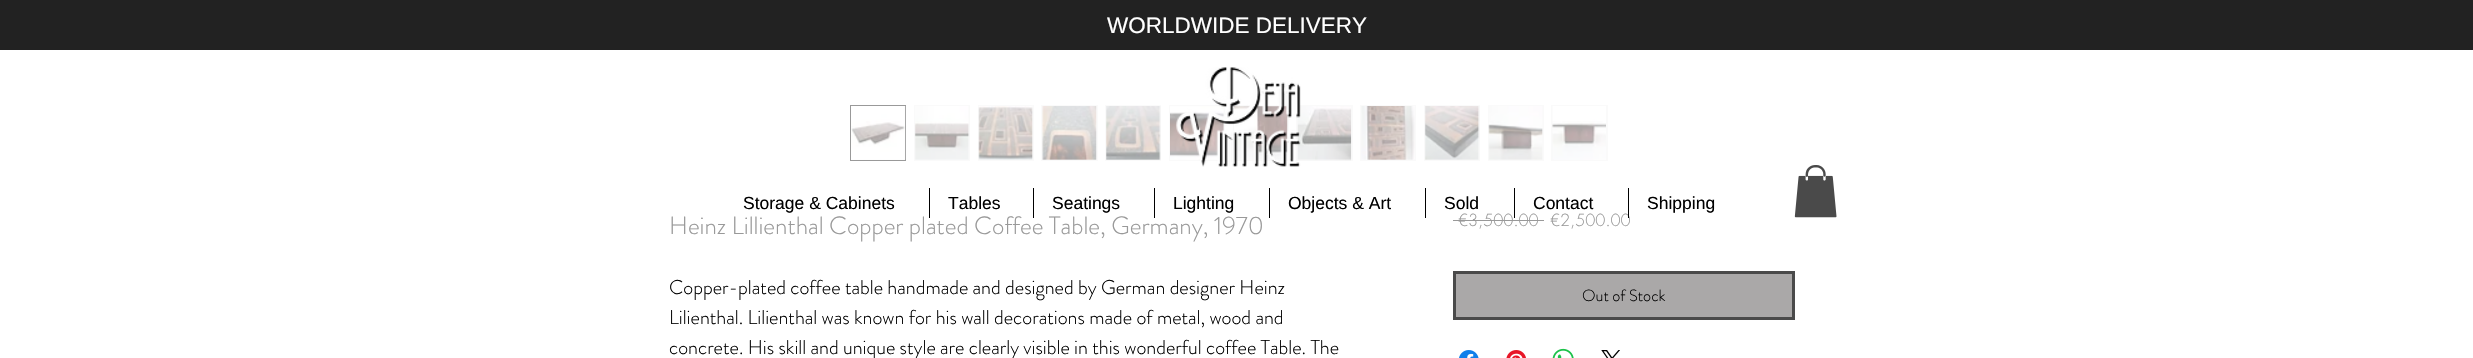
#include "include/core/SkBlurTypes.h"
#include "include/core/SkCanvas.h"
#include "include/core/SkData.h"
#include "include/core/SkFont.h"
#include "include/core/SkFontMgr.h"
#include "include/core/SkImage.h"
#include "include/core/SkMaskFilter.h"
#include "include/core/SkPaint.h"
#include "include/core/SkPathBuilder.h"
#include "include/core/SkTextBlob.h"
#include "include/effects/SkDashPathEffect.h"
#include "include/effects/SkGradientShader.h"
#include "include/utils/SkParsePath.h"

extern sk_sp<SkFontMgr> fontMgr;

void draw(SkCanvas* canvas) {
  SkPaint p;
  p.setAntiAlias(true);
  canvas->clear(SK_ColorWHITE);
  p.setColor(SkColorSetRGB(34, 34, 34));
  canvas->drawRect(SkRect::MakeLTRB(0, 0, 2473, 50), p);
  p.setColor(SkColorSetRGB(250, 250, 250));
  canvas->drawRect(SkRect::MakeLTRB(1169, 105, 1225, 161), p);
  canvas->drawImageRect(SkImages::DeferredFromEncodedData(SkData::MakeFromFileName("images/8.png")), SkRect::MakeLTRB(1170, 106, 1224, 160), SkSamplingOptions());
  canvas->drawRect(SkRect::MakeLTRB(1233, 105, 1289, 161), p);
  canvas->drawImageRect(SkImages::DeferredFromEncodedData(SkData::MakeFromFileName("images/9.png")), SkRect::MakeLTRB(1233, 106, 1288, 160), SkSamplingOptions());
  canvas->drawRect(SkRect::MakeLTRB(1296, 105, 1353, 161), p);
  canvas->drawImageRect(SkImages::DeferredFromEncodedData(SkData::MakeFromFileName("images/10.png")), SkRect::MakeLTRB(1297, 106, 1352, 161), SkSamplingOptions());
  canvas->drawImageRect(SkImages::DeferredFromEncodedData(SkData::MakeFromFileName("images/1.png")), SkRect::MakeLTRB(1176, 67, 1301, 167), SkSamplingOptions());
  p.setColor(SK_ColorBLACK);
  canvas->drawRect(SkRect::MakeLTRB(1269, 188, 1270, 218), p);
  canvas->drawRect(SkRect::MakeLTRB(1425, 188, 1426, 218), p);
  canvas->drawImageRect(SkImages::DeferredFromEncodedData(SkData::MakeFromFileName("images/2.png")), SkRect::MakeLTRB(1794, 165, 1837, 218), SkSamplingOptions());
  p.setColor(SkColorSetRGB(250, 250, 250));
  canvas->drawRect(SkRect::MakeLTRB(850.5f, 105.5f, 905.5f, 160.5f), p);
  p.setStyle(SkPaint::kStroke_Style);
  p.setStrokeWidth(1);
  p.setColor(SkColorSetRGB(153, 153, 153));
  canvas->drawRect(SkRect::MakeLTRB(850.5f, 105.5f, 905.5f, 160.5f), p);
  canvas->drawImageRect(SkImages::DeferredFromEncodedData(SkData::MakeFromFileName("images/3.png")), SkRect::MakeLTRB(851, 106, 906, 160), SkSamplingOptions());
  p.setStyle(SkPaint::kFill_Style);
  p.setColor(SkColorSetRGB(250, 250, 250));
  canvas->drawRect(SkRect::MakeLTRB(914, 105, 970, 161), p);
  canvas->drawImageRect(SkImages::DeferredFromEncodedData(SkData::MakeFromFileName("images/4.png")), SkRect::MakeLTRB(914, 106, 970, 160), SkSamplingOptions());
  canvas->drawRect(SkRect::MakeLTRB(978, 105, 1034, 161), p);
  canvas->drawImageRect(SkImages::DeferredFromEncodedData(SkData::MakeFromFileName("images/5.png")), SkRect::MakeLTRB(978, 106, 1033, 160), SkSamplingOptions());
  canvas->drawRect(SkRect::MakeLTRB(1041, 105, 1098, 161), p);
  canvas->drawImageRect(SkImages::DeferredFromEncodedData(SkData::MakeFromFileName("images/6.png")), SkRect::MakeLTRB(1042, 106, 1097, 160), SkSamplingOptions());
  canvas->drawRect(SkRect::MakeLTRB(1105, 105, 1161, 161), p);
  canvas->drawImageRect(SkImages::DeferredFromEncodedData(SkData::MakeFromFileName("images/7.png")), SkRect::MakeLTRB(1106, 106, 1161, 160), SkSamplingOptions());
  canvas->drawRect(SkRect::MakeLTRB(1360, 105, 1416, 161), p);
  canvas->drawImageRect(SkImages::DeferredFromEncodedData(SkData::MakeFromFileName("images/11.png")), SkRect::MakeLTRB(1361, 106, 1415, 160), SkSamplingOptions());
  canvas->drawRect(SkRect::MakeLTRB(1424, 105, 1480, 161), p);
  canvas->drawImageRect(SkImages::DeferredFromEncodedData(SkData::MakeFromFileName("images/12.png")), SkRect::MakeLTRB(1424, 106, 1480, 160), SkSamplingOptions());
  canvas->drawRect(SkRect::MakeLTRB(1488, 105, 1544, 161), p);
  canvas->drawImageRect(SkImages::DeferredFromEncodedData(SkData::MakeFromFileName("images/13.png")), SkRect::MakeLTRB(1488, 106, 1543, 160), SkSamplingOptions());
  canvas->drawRect(SkRect::MakeLTRB(1551, 105, 1608, 161), p);
  canvas->drawImageRect(SkImages::DeferredFromEncodedData(SkData::MakeFromFileName("images/14.png")), SkRect::MakeLTRB(1552, 106, 1606, 160), SkSamplingOptions());
  p.setColor(SkColorSetRGB(153, 153, 153));
  canvas->drawRect(SkRect::MakeLTRB(1453, 220, 1544, 221), p);
  p.setColor(SkColorSetRGB(170, 168, 168));
  canvas->drawRect(SkRect::MakeLTRB(1454.5f, 272.5f, 1793.5f, 318.5f), p);
  p.setStyle(SkPaint::kStroke_Style);
  p.setStrokeWidth(3);
  p.setColor(SkColorSetRGB(74, 74, 74));
  canvas->drawRect(SkRect::MakeLTRB(1454.5f, 272.5f, 1793.5f, 318.5f), p);
  canvas->drawImageRect(SkImages::DeferredFromEncodedData(SkData::MakeFromFileName("images/15.png")), SkRect::MakeLTRB(1459, 350, 1479, 358), SkSamplingOptions());
  canvas->drawImageRect(SkImages::DeferredFromEncodedData(SkData::MakeFromFileName("images/16.png")), SkRect::MakeLTRB(1506, 350, 1526, 358), SkSamplingOptions());
  canvas->drawImageRect(SkImages::DeferredFromEncodedData(SkData::MakeFromFileName("images/17.png")), SkRect::MakeLTRB(1552, 348, 1574, 358), SkSamplingOptions());
  canvas->drawImageRect(SkImages::DeferredFromEncodedData(SkData::MakeFromFileName("images/18.png")), SkRect::MakeLTRB(1601, 350, 1620, 358), SkSamplingOptions());
  SkFont font1(fontMgr->matchFamilyStyle("Liberation Sans", SkFontStyle::Normal()), 22.5f);
  font1.setSubpixel(true);
  p.setStyle(SkPaint::kFill_Style);
  p.setColor(SK_ColorWHITE);
  canvas->drawString("WORLDWIDE DELIVERY", 1107, 33, font1, p);
  SkFont font2(fontMgr->matchFamilyStyle("Liberation Sans", SkFontStyle::Normal()), 17.5f);
  font2.setSubpixel(true);
  p.setColor(SK_ColorBLACK);
  canvas->drawString("Storage & Cabinets", 743, 209, font2, p);
  canvas->drawString("Tables", 948, 209, font2, p);
  canvas->drawString("Seatings", 1052, 209, font2, p);
  canvas->drawString("Lighting", 1173, 209, font2, p);
  canvas->drawString("Objects & Art", 1288, 209, font2, p);
  canvas->drawString("Sold", 1444, 209, font2, p);
  canvas->drawString("Contact", 1533, 209, font2, p);
  canvas->drawString("Shipping", 1647, 209, font2, p);
  SkFont font3(fontMgr->matchFamilyStyle("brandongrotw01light", SkFontStyle(300, SkFontStyle::kNormal_Width, SkFontStyle::kUpright_Slant)), 25);
  font3.setSubpixel(true);
  p.setColor(SkColorSetRGB(153, 153, 153));
  canvas->drawString("Heinz Lillienthal Copper plated Coffee Table, Germany, 1970", 669, 234, font3, p);
  p.setColor(SK_ColorBLACK);
  canvas->drawRect(SkRect::MakeLTRB(1154, 188, 1155, 218), p);
  canvas->drawRect(SkRect::MakeLTRB(1033, 188, 1034, 218), p);
  canvas->drawRect(SkRect::MakeLTRB(929, 188, 930, 218), p);
  SkFont font4(fontMgr->matchFamilyStyle("brandongrotw01light", SkFontStyle(300, SkFontStyle::kNormal_Width, SkFontStyle::kUpright_Slant)), 20);
  font4.setSubpixel(true);
  canvas->drawString("Copper-plated coffee table handmade and designed by German designer Heinz", 669, 294, font4, p);
  canvas->drawString("Lilienthal. Lilienthal was known for his wall decorations made of metal, wood and", 669, 324, font4, p);
  canvas->drawString("concrete. His skill and unique style are clearly visible in this wonderful coffee Table. The", 669, 354, font4, p);
  SkFont font5(fontMgr->matchFamilyStyle("futura", SkFontStyle(300, SkFontStyle::kNormal_Width, SkFontStyle::kUpright_Slant)), 16.25f);
  font5.setSubpixel(true);
  p.setColor(SkColorSetRGB(153, 153, 153));
  canvas->drawString("€3,500.00", 1458, 226, font5, p);
  p.setColor(SK_ColorBLACK);
  canvas->drawRect(SkRect::MakeLTRB(1514, 188, 1515, 218), p);
  p.setColor(SkColorSetRGB(153, 153, 153));
  canvas->drawString("€2,500.00", 1550, 226, font5, p);
  p.setColor(SK_ColorBLACK);
  canvas->drawRect(SkRect::MakeLTRB(1628, 188, 1629, 218), p);
  SkFont font6(fontMgr->matchFamilyStyle("brandongrotw01light", SkFontStyle(300, SkFontStyle::kNormal_Width, SkFontStyle::kUpright_Slant)), 16.25f);
  font6.setSubpixel(true);
  canvas->drawString("Out of Stock", 1582, 301, font6, p);
}
